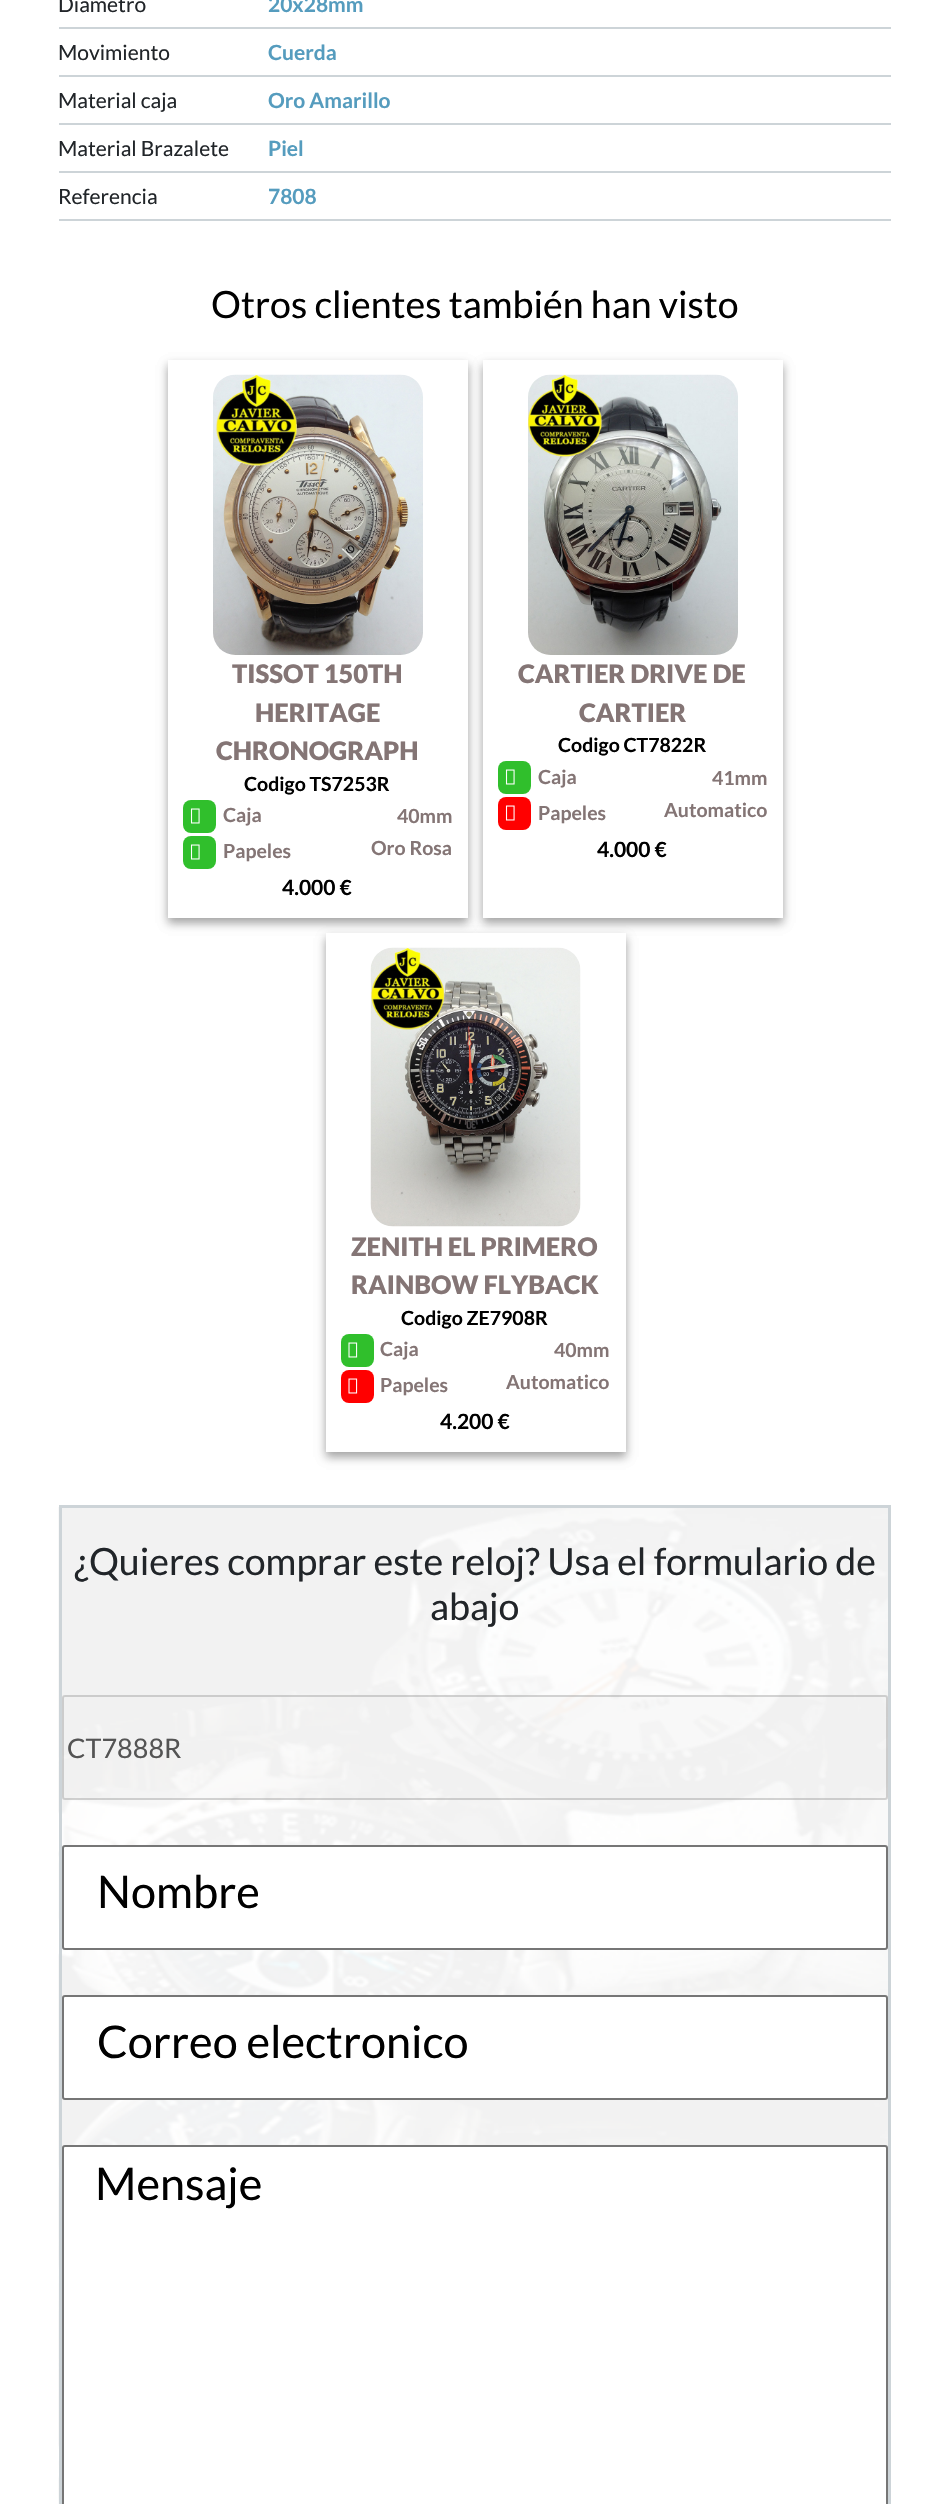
#include "include/core/SkBlurTypes.h"
#include "include/core/SkCanvas.h"
#include "include/core/SkData.h"
#include "include/core/SkFont.h"
#include "include/core/SkFontMgr.h"
#include "include/core/SkImage.h"
#include "include/core/SkMaskFilter.h"
#include "include/core/SkPaint.h"
#include "include/core/SkPathBuilder.h"
#include "include/core/SkTextBlob.h"
#include "include/effects/SkDashPathEffect.h"
#include "include/effects/SkGradientShader.h"
#include "include/utils/SkParsePath.h"

extern sk_sp<SkFontMgr> fontMgr;

void draw(SkCanvas* canvas) {
  SkPaint p;
  p.setAntiAlias(true);
  canvas->clear(SK_ColorWHITE);
  p.setColor(SkColorSetRGB(205, 212, 216));
  canvas->drawRect(SkRect::MakeLTRB(59, 27, 891, 29), p);
  canvas->drawRect(SkRect::MakeLTRB(59, 75, 891, 77), p);
  canvas->drawRect(SkRect::MakeLTRB(59, 123, 891, 125), p);
  canvas->drawRect(SkRect::MakeLTRB(59, 171, 891, 173), p);
  canvas->drawRect(SkRect::MakeLTRB(59, 219, 891, 221), p);
  canvas->save();
  canvas->clipPath(SkPathBuilder(SkPathFillType::kEvenOdd).moveTo(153, 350).lineTo(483, 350).lineTo(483, 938).lineTo(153, 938).close().moveTo(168, 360).lineTo(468, 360).lineTo(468, 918).lineTo(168, 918).close().detach(), true);
  p.setColor(SkColorSetARGB(59, 0, 0, 0));
  p.setMaskFilter(SkMaskFilter::MakeBlur(kNormal_SkBlurStyle, 4.5f));
  canvas->drawRect(SkRect::MakeLTRB(168, 365, 468, 923), p);
  p.setMaskFilter(nullptr);
  p.setColor(SkColorSetARGB(41, 0, 0, 0));
  p.setMaskFilter(SkMaskFilter::MakeBlur(kNormal_SkBlurStyle, 4.5f));
  canvas->drawRect(SkRect::MakeLTRB(168, 365, 468, 923), p);
  p.setMaskFilter(nullptr);
  canvas->restore();
  canvas->drawImageRect(SkImages::DeferredFromEncodedData(SkData::MakeFromFileName("images/1.png")), SkRect::MakeLTRB(213, 374, 423, 655), SkSamplingOptions());
  p.setColor(SkColorSetRGB(48, 191, 44));
  canvas->drawRoundRect(SkRect::MakeLTRB(183, 800, 216, 833), 8, 8, p);
  canvas->drawImageRect(SkImages::DeferredFromEncodedData(SkData::MakeFromFileName("images/2.png")), SkRect::MakeLTRB(190, 808, 200, 824), SkSamplingOptions());
  canvas->drawRoundRect(SkRect::MakeLTRB(183, 836, 216, 869), 8, 8, p);
  canvas->drawImageRect(SkImages::DeferredFromEncodedData(SkData::MakeFromFileName("images/2.png")), SkRect::MakeLTRB(190, 844, 200, 860), SkSamplingOptions());
  canvas->save();
  canvas->clipPath(SkPathBuilder(SkPathFillType::kEvenOdd).moveTo(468, 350).lineTo(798, 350).lineTo(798, 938).lineTo(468, 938).close().moveTo(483, 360).lineTo(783, 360).lineTo(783, 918).lineTo(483, 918).close().detach(), true);
  p.setColor(SkColorSetARGB(59, 0, 0, 0));
  p.setMaskFilter(SkMaskFilter::MakeBlur(kNormal_SkBlurStyle, 4.5f));
  canvas->drawRect(SkRect::MakeLTRB(483, 365, 783, 923), p);
  p.setMaskFilter(nullptr);
  p.setColor(SkColorSetARGB(41, 0, 0, 0));
  p.setMaskFilter(SkMaskFilter::MakeBlur(kNormal_SkBlurStyle, 4.5f));
  canvas->drawRect(SkRect::MakeLTRB(483, 365, 783, 923), p);
  p.setMaskFilter(nullptr);
  canvas->restore();
  canvas->drawImageRect(SkImages::DeferredFromEncodedData(SkData::MakeFromFileName("images/3.png")), SkRect::MakeLTRB(528, 374, 738, 655), SkSamplingOptions());
  p.setColor(SkColorSetRGB(48, 191, 44));
  canvas->drawRoundRect(SkRect::MakeLTRB(498, 761, 531, 794), 8, 8, p);
  canvas->drawImageRect(SkImages::DeferredFromEncodedData(SkData::MakeFromFileName("images/2.png")), SkRect::MakeLTRB(505, 769, 515, 785), SkSamplingOptions());
  p.setColor(SkColorSetRGB(255, 0, 0));
  canvas->drawRoundRect(SkRect::MakeLTRB(498, 797, 531, 830), 8, 8, p);
  canvas->drawImageRect(SkImages::DeferredFromEncodedData(SkData::MakeFromFileName("images/4.png")), SkRect::MakeLTRB(505, 805, 515, 821), SkSamplingOptions());
  p.setColor(SkColorSetARGB(59, 0, 0, 0));
  p.setMaskFilter(SkMaskFilter::MakeBlur(kNormal_SkBlurStyle, 4.5f));
  canvas->drawRect(SkRect::MakeLTRB(326, 938, 626, 1457), p);
  p.setMaskFilter(nullptr);
  p.setColor(SkColorSetARGB(41, 0, 0, 0));
  p.setMaskFilter(SkMaskFilter::MakeBlur(kNormal_SkBlurStyle, 4.5f));
  canvas->drawRect(SkRect::MakeLTRB(326, 938, 626, 1457), p);
  p.setMaskFilter(nullptr);
  p.setColor(SK_ColorWHITE);
  canvas->drawRect(SkRect::MakeLTRB(326, 933, 626, 1452), p);
  canvas->drawImageRect(SkImages::DeferredFromEncodedData(SkData::MakeFromFileName("images/5.png")), SkRect::MakeLTRB(370, 947, 581, 1227), SkSamplingOptions());
  p.setColor(SkColorSetRGB(48, 191, 44));
  canvas->drawRoundRect(SkRect::MakeLTRB(341, 1334, 374, 1367), 8, 8, p);
  canvas->drawImageRect(SkImages::DeferredFromEncodedData(SkData::MakeFromFileName("images/6.png")), SkRect::MakeLTRB(348, 1342, 358, 1358), SkSamplingOptions());
  p.setColor(SkColorSetRGB(255, 0, 0));
  canvas->drawRoundRect(SkRect::MakeLTRB(341, 1370, 374, 1403), 8, 8, p);
  canvas->drawImageRect(SkImages::DeferredFromEncodedData(SkData::MakeFromFileName("images/7.png")), SkRect::MakeLTRB(348, 1378, 358, 1394), SkSamplingOptions());
  canvas->drawImageRect(SkImages::DeferredFromEncodedData(SkData::MakeFromFileName("images/8.png")), SkRect::MakeLTRB(58, 1507, 888, 2504), SkSamplingOptions());
  p.setStyle(SkPaint::kStroke_Style);
  p.setStrokeWidth(3);
  p.setColor(SkColorSetRGB(205, 212, 216));
  canvas->drawRect(SkRect::MakeLTRB(60.5f, 1506.5f, 889.5f, 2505.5f), p);
  p.setStyle(SkPaint::kFill_Style);
  p.setColor(SkColorSetARGB(77, 239, 239, 239));
  canvas->drawRoundRect(SkRect::MakeLTRB(62, 1695, 888, 1800), 3, 3, p);
  p.setStyle(SkPaint::kStroke_Style);
  p.setStrokeWidth(2);
  p.setColor(SkColorSetARGB(77, 118, 118, 118));
  canvas->drawRoundRect(SkRect::MakeLTRB(63, 1696, 887, 1799), 2, 2, p);
  p.setStyle(SkPaint::kFill_Style);
  p.setColor(SK_ColorWHITE);
  canvas->drawRoundRect(SkRect::MakeLTRB(63, 1846, 887, 1949), 2, 2, p);
  p.setStyle(SkPaint::kStroke_Style);
  p.setColor(SkColorSetRGB(118, 118, 118));
  canvas->drawRoundRect(SkRect::MakeLTRB(63, 1846, 887, 1949), 2, 2, p);
  p.setStyle(SkPaint::kFill_Style);
  p.setColor(SK_ColorWHITE);
  canvas->drawRoundRect(SkRect::MakeLTRB(63, 1996, 887, 2099), 2, 2, p);
  p.setStyle(SkPaint::kStroke_Style);
  p.setColor(SkColorSetRGB(118, 118, 118));
  canvas->drawRoundRect(SkRect::MakeLTRB(63, 1996, 887, 2099), 2, 2, p);
  p.setStyle(SkPaint::kFill_Style);
  p.setColor(SK_ColorWHITE);
  canvas->drawRoundRect(SkRect::MakeLTRB(63, 2146, 887, 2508), 2, 2, p);
  p.setStyle(SkPaint::kStroke_Style);
  p.setColor(SkColorSetRGB(118, 118, 118));
  canvas->drawRoundRect(SkRect::MakeLTRB(63, 2146, 887, 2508), 2, 2, p);
  SkFont font1(fontMgr->matchFamilyStyle("Lato", SkFontStyle::Normal()), 21);
  font1.setSubpixel(true);
  p.setStyle(SkPaint::kFill_Style);
  p.setColor(SkColorSetRGB(33, 37, 41));
  canvas->drawString("Diametro", 58, 12, font1, p);
  SkFont font2(fontMgr->matchFamilyStyle("Lato", SkFontStyle::Bold()), 21);
  font2.setSubpixel(true);
  p.setColor(SkColorSetRGB(85, 156, 190));
  canvas->drawString("20x28mm", 268, 12, font2, p);
  p.setColor(SkColorSetRGB(33, 37, 41));
  canvas->drawString("Movimiento", 58, 60, font1, p);
  p.setColor(SkColorSetRGB(85, 156, 190));
  canvas->drawString("Cuerda", 268, 60, font2, p);
  p.setColor(SkColorSetRGB(33, 37, 41));
  canvas->drawString("Material caja", 58, 108, font1, p);
  p.setColor(SkColorSetRGB(85, 156, 190));
  canvas->drawString("Oro Amarillo", 268, 108, font2, p);
  p.setColor(SkColorSetRGB(33, 37, 41));
  canvas->drawString("Material Brazalete", 58, 156, font1, p);
  p.setColor(SkColorSetRGB(85, 156, 190));
  canvas->drawString("Piel", 268, 156, font2, p);
  p.setColor(SkColorSetRGB(33, 37, 41));
  canvas->drawString("Referencia", 58, 204, font1, p);
  p.setColor(SkColorSetRGB(85, 156, 190));
  canvas->drawString("7808", 268, 204, font2, p);
  SkFont font3(fontMgr->matchFamilyStyle("Lato", SkFontStyle::Normal()), 37.5f);
  font3.setSubpixel(true);
  p.setColor(SK_ColorBLACK);
  canvas->drawString("Otros clientes también han visto", 211, 318, font3, p);
  SkFont font4(fontMgr->matchFamilyStyle("Lato", SkFontStyle(900, SkFontStyle::kNormal_Width, SkFontStyle::kUpright_Slant)), 25.5f);
  font4.setSubpixel(true);
  p.setColor(SkColorSetRGB(132, 117, 117));
  canvas->drawString("TISSOT 150TH", 232, 683, font4, p);
  canvas->drawString("HERITAGE", 255, 722, font4, p);
  canvas->drawString("CHRONOGRAPH", 216, 760, font4, p);
  SkFont font5(fontMgr->matchFamilyStyle("Lato", SkFontStyle::Bold()), 19.5f);
  font5.setSubpixel(true);
  p.setColor(SK_ColorBLACK);
  canvas->drawString("Codigo TS7253R", 244, 791, font5, p);
  p.setColor(SkColorSetRGB(132, 117, 117));
  canvas->drawString("Caja", 223, 822, font5, p);
  canvas->drawString("Papeles", 223, 858, font5, p);
  canvas->drawString("40mm", 397, 823, font5, p);
  canvas->drawString("Oro Rosa", 371, 855, font5, p);
  p.setColor(SK_ColorBLACK);
  canvas->drawString("4.000 €", 282, 895, font2, p);
  p.setColor(SkColorSetRGB(132, 117, 117));
  canvas->drawString("CARTIER DRIVE DE", 518, 683, font4, p);
  canvas->drawString("CARTIER", 579, 722, font4, p);
  p.setColor(SK_ColorBLACK);
  canvas->drawString("Codigo CT7822R", 558, 752, font5, p);
  p.setColor(SkColorSetRGB(132, 117, 117));
  canvas->drawString("Caja", 538, 784, font5, p);
  canvas->drawString("Papeles", 538, 820, font5, p);
  canvas->drawString("41mm", 712, 785, font5, p);
  canvas->drawString("Automatico", 664, 817, font5, p);
  p.setColor(SK_ColorBLACK);
  canvas->drawString("4.000 €", 597, 857, font2, p);
  p.setColor(SkColorSetRGB(132, 117, 117));
  canvas->drawString("ZENITH EL PRIMERO", 351, 1256, font4, p);
  canvas->drawString("RAINBOW FLYBACK", 351, 1294, font4, p);
  p.setColor(SK_ColorBLACK);
  canvas->drawString("Codigo ZE7908R", 401, 1325, font5, p);
  p.setColor(SkColorSetRGB(132, 117, 117));
  canvas->drawString("Caja", 380, 1356, font5, p);
  canvas->drawString("Papeles", 380, 1392, font5, p);
  canvas->drawString("40mm", 554, 1357, font5, p);
  canvas->drawString("Automatico", 506, 1389, font5, p);
  p.setColor(SK_ColorBLACK);
  canvas->drawString("4.200 €", 440, 1429, font2, p);
  p.setColor(SkColorSetRGB(33, 37, 41));
  canvas->drawString("¿Quieres comprar este reloj? Usa el formulario de", 74, 1575, font3, p);
  canvas->drawString("abajo", 430, 1620, font3, p);
  SkFont font6(fontMgr->matchFamilyStyle("Lato", SkFontStyle::Normal()), 27);
  font6.setSubpixel(true);
  p.setColor(SkColorSetRGB(84, 84, 84));
  canvas->drawString("CT7888R", 67, 1758, font6, p);
  SkFont font7(fontMgr->matchFamilyStyle("Lato", SkFontStyle::Normal()), 45);
  font7.setSubpixel(true);
  p.setColor(SK_ColorBLACK);
  canvas->drawString("Nombre", 97, 1908, font7, p);
  canvas->drawString("Correo electronico", 97, 2058, font7, p);
  canvas->drawString("Mensaje", 95, 2200, font7, p);
}
